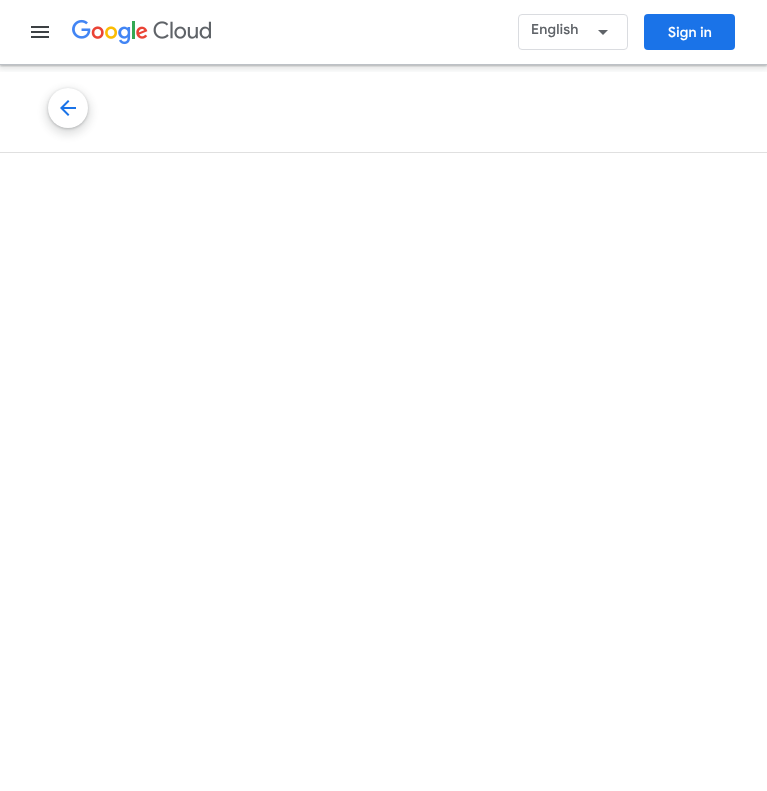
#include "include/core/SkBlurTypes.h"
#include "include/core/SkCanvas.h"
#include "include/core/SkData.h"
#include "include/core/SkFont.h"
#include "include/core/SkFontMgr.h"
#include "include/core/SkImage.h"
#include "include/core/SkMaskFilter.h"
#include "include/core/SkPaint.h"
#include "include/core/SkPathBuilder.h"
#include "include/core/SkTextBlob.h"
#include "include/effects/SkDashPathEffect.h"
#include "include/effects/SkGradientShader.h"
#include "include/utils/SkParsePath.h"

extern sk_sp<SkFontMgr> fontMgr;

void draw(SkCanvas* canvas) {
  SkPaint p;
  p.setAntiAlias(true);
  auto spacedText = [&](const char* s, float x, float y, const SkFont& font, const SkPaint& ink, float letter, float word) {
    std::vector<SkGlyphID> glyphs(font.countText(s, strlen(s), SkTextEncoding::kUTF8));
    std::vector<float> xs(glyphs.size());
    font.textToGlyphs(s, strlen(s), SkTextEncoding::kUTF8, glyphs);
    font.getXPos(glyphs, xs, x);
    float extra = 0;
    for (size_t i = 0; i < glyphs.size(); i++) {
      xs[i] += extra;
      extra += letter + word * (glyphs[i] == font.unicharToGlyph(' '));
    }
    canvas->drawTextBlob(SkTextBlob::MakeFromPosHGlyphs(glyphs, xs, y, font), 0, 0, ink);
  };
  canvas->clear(SK_ColorWHITE);
  canvas->save();
  canvas->clipRect(SkRect::MakeLTRB(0, 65, 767, 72));
  p.setColor(SkColorSetARGB(38, 60, 64, 67));
  p.setMaskFilter(SkMaskFilter::MakeBlur(kNormal_SkBlurStyle, 3));
  canvas->drawRect(SkRect::MakeLTRB(-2, 0, 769, 69), p);
  p.setMaskFilter(nullptr);
  canvas->restore();
  canvas->save();
  canvas->clipRect(SkRect::MakeLTRB(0, 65, 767, 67));
  p.setColor(SkColorSetARGB(77, 60, 64, 67));
  p.setMaskFilter(SkMaskFilter::MakeBlur(kNormal_SkBlurStyle, 1));
  canvas->drawRect(SkRect::MakeLTRB(0, 1, 767, 66), p);
  p.setMaskFilter(nullptr);
  canvas->restore();
  p.setColor(SkColorSetRGB(189, 193, 198));
  canvas->drawRect(SkRect::MakeLTRB(0, 64, 767, 65), p);
  canvas->drawImageRect(SkImages::DeferredFromEncodedData(SkData::MakeFromFileName("images/1.png")), SkRect::MakeLTRB(31, 26, 49, 38), SkSamplingOptions());
  canvas->drawImageRect(SkImages::DeferredFromEncodedData(SkData::MakeFromFileName("images/2.png")), SkRect::MakeLTRB(72, 19, 211, 45), SkSamplingOptions());
  p.setStyle(SkPaint::kStroke_Style);
  p.setStrokeWidth(1);
  p.setColor(SkColorSetRGB(218, 220, 224));
  canvas->drawRoundRect(SkRect::MakeLTRB(518.5f, 14.5f, 627.5f, 49.5f), 3.5f, 3.5f, p);
  p.setStyle(SkPaint::kFill_Style);
  p.setColor(SkColorSetRGB(95, 99, 104));
  canvas->drawPath(SkPathBuilder().moveTo(598, 30).lineTo(603, 35).lineTo(608, 30).close().detach(), p);
  p.setColor(SkColorSetRGB(26, 115, 232));
  canvas->drawRoundRect(SkRect::MakeLTRB(644, 14, 735, 50), 4, 4, p);
  p.setColor(SkColorSetARGB(38, 60, 64, 67));
  p.setMaskFilter(SkMaskFilter::MakeBlur(kNormal_SkBlurStyle, 4));
  canvas->drawRoundRect(SkRect::MakeLTRB(45, 89, 91, 135), 23, 23, p);
  p.setMaskFilter(nullptr);
  p.setColor(SkColorSetARGB(77, 60, 64, 67));
  p.setMaskFilter(SkMaskFilter::MakeBlur(kNormal_SkBlurStyle, 1.5f));
  canvas->drawRoundRect(SkRect::MakeLTRB(48, 89, 88, 129), 20, 20, p);
  p.setMaskFilter(nullptr);
  p.setColor(SK_ColorWHITE);
  canvas->drawCircle(68, 108, 20, p);
  canvas->drawImageRect(SkImages::DeferredFromEncodedData(SkData::MakeFromFileName("images/3.png")), SkRect::MakeLTRB(60, 100, 76, 116), SkSamplingOptions());
  p.setColor(SkColorSetRGB(224, 224, 224));
  canvas->drawRect(SkRect::MakeLTRB(0, 152, 767, 153), p);
  SkFont font1(fontMgr->matchFamilyStyle("Google Sans", SkFontStyle(500, SkFontStyle::kNormal_Width, SkFontStyle::kUpright_Slant)), 14);
  font1.setSubpixel(true);
  p.setColor(SkColorSetRGB(95, 99, 104));
  spacedText("English", 531, 34, font1, p, 0.25f, 0);
  p.setColor(SK_ColorWHITE);
  spacedText("Sign in", 668, 37, font1, p, 0.25f, 0);
}
